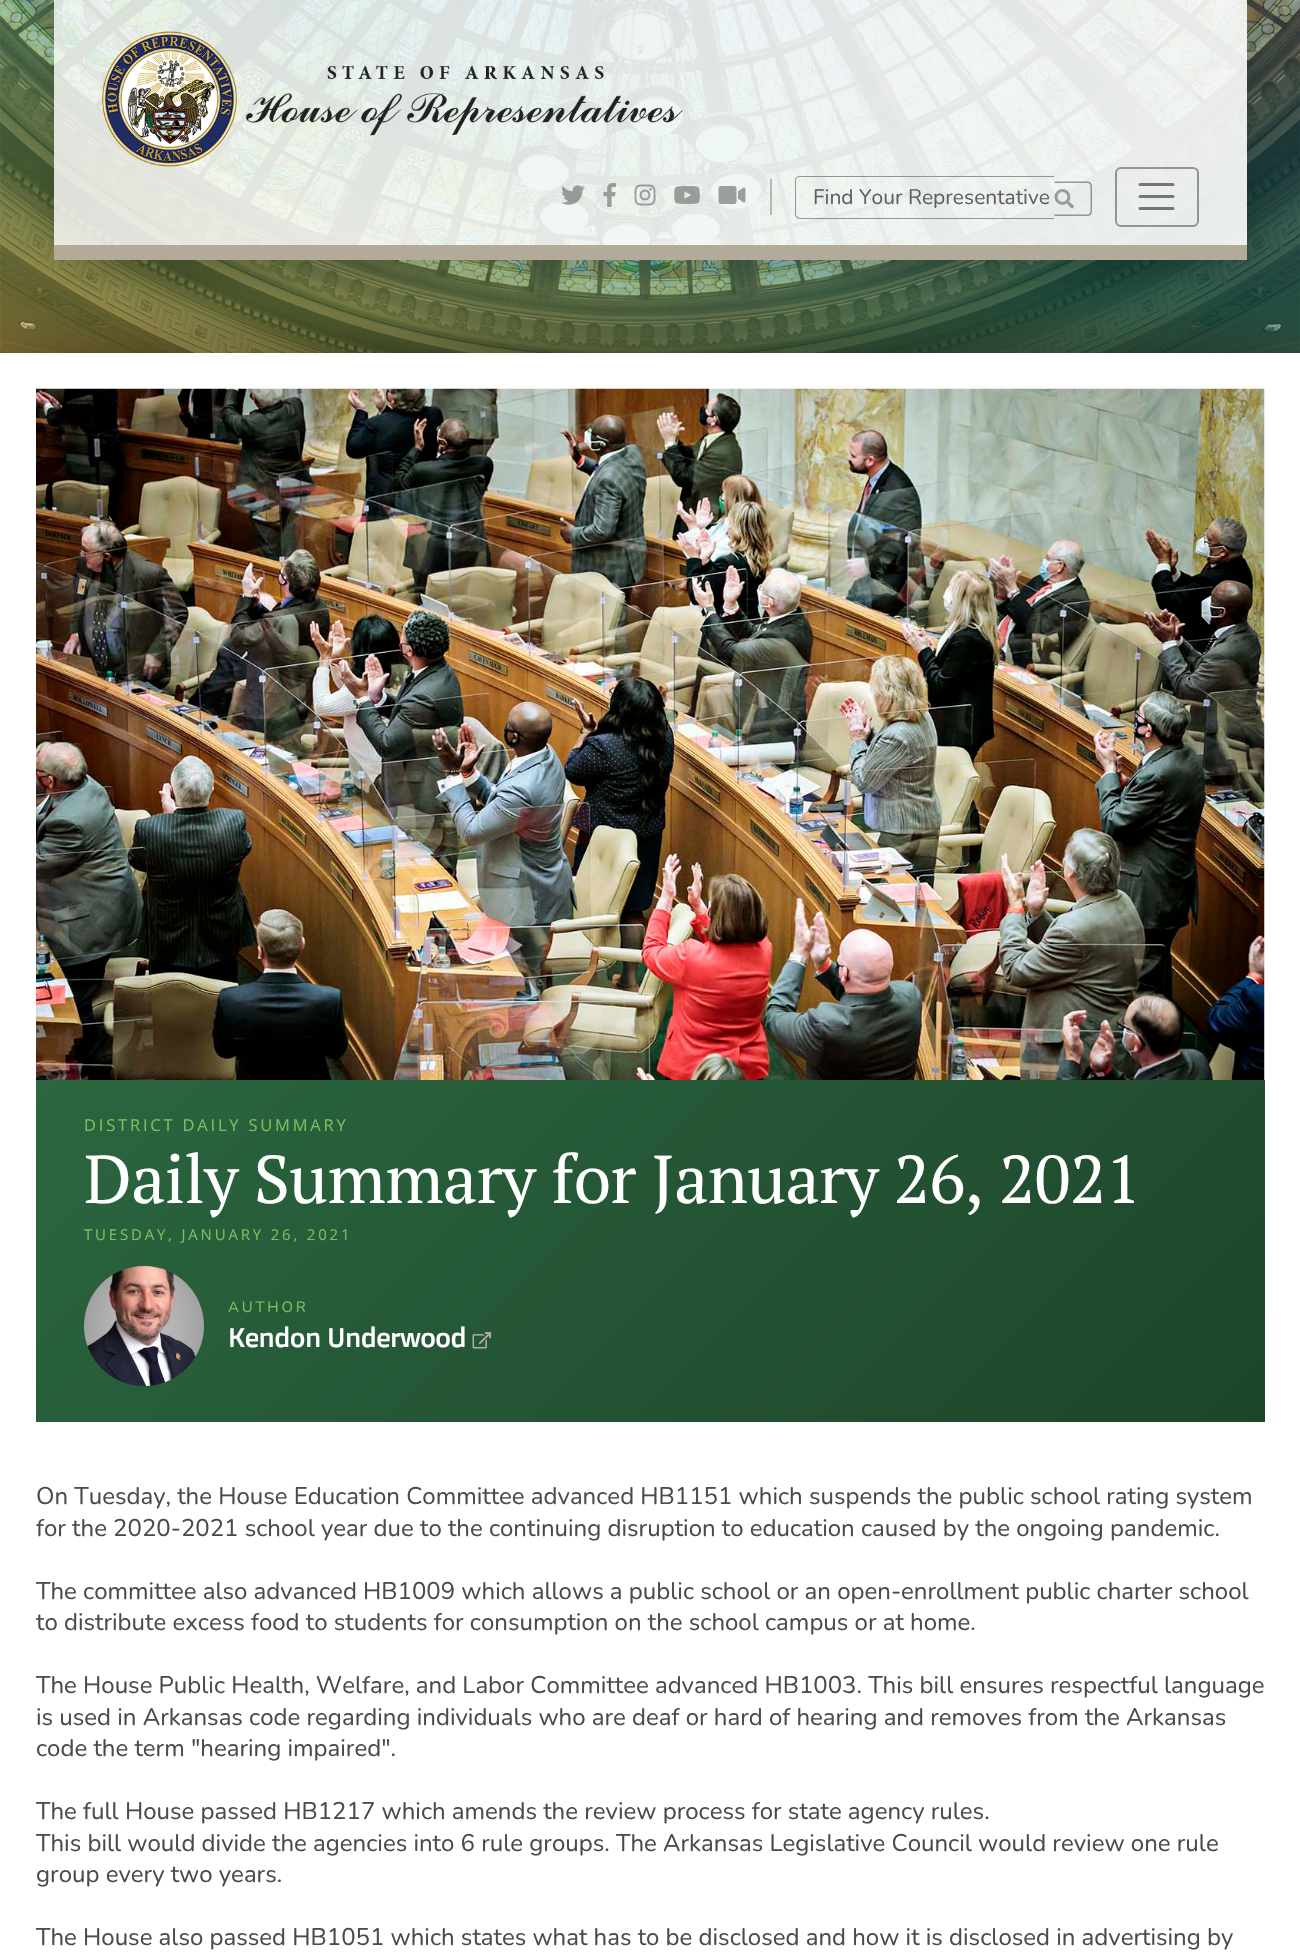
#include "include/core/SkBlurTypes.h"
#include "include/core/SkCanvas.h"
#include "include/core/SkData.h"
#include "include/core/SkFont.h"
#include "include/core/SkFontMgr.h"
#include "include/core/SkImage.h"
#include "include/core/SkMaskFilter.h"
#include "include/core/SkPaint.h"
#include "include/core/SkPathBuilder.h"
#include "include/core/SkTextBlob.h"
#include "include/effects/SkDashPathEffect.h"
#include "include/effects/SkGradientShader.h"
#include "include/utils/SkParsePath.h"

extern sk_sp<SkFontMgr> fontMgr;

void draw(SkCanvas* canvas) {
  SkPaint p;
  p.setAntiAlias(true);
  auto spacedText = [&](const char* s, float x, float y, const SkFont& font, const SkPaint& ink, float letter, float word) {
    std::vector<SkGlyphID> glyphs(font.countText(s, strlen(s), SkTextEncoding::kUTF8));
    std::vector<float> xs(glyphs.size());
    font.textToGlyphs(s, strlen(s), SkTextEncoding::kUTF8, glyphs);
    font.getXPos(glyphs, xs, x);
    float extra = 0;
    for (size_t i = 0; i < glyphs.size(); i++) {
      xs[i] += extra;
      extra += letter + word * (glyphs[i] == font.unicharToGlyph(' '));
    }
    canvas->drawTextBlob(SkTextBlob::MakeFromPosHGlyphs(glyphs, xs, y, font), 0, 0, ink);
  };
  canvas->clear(SK_ColorWHITE);
  canvas->drawImageRect(SkImages::DeferredFromEncodedData(SkData::MakeFromFileName("images/1.png")), SkRect::MakeLTRB(0, 0, 1300, 353), SkSamplingOptions());
  canvas->save();
  canvas->clipPath(SkPathBuilder(SkPathFillType::kEvenOdd).moveTo(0, 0).lineTo(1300, 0).lineTo(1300, 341).lineTo(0, 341).close().moveTo(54, 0).lineTo(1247, 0).lineTo(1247, 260).lineTo(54, 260).close().detach(), true);
  p.setColor(SkColorSetARGB(51, 0, 0, 0));
  p.setMaskFilter(SkMaskFilter::MakeBlur(kNormal_SkBlurStyle, 22.5f));
  canvas->drawRect(SkRect::MakeLTRB(60, 12, 1253, 272), p);
  p.setMaskFilter(nullptr);
  canvas->restore();
  p.setColor(SkColorSetARGB(179, 0, 0, 0));
  p.setMaskFilter(SkMaskFilter::MakeBlur(kNormal_SkBlurStyle, 75));
  canvas->drawRect(SkRect::MakeLTRB(0, 422, 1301, 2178), p);
  p.setMaskFilter(nullptr);
  p.setColor(SkColorSetARGB(102, 0, 0, 0));
  p.setMaskFilter(SkMaskFilter::MakeBlur(kNormal_SkBlurStyle, 45));
  canvas->drawRect(SkRect::MakeLTRB(6, 377, 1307, 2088), p);
  p.setMaskFilter(nullptr);
  p.setColor(SkColorSetRGB(179, 170, 153));
  canvas->drawRect(SkRect::MakeLTRB(54, 245, 1247, 260), p);
  {
    const SkColor colors[] = {SkColorSetARGB(204, 255, 255, 255), SkColorSetARGB(230, 255, 255, 255)};
    const float stops[] = {0, 1};
    const SkPoint ends[] = {{291, -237}, {1010, 482}};
    p.setShader(SkGradientShader::MakeLinear(ends, colors, stops, 2, SkTileMode::kClamp));
    p.setAlpha(255);
  }
  canvas->drawRect(SkRect::MakeLTRB(54, 0, 1247, 245), p);
  canvas->drawImageRect(SkImages::DeferredFromEncodedData(SkData::MakeFromFileName("images/2.png")), SkRect::MakeLTRB(102, 31, 683, 167), SkSamplingOptions());
  p.setShader(nullptr);
  p.setColor(SkColorSetARGB(102, 100, 100, 100));
  canvas->drawRect(SkRect::MakeLTRB(770, 179, 772, 215), p);
  canvas->drawImageRect(SkImages::DeferredFromEncodedData(SkData::MakeFromFileName("images/3.png")), SkRect::MakeLTRB(561, 185, 585, 205), SkSamplingOptions());
  canvas->drawImageRect(SkImages::DeferredFromEncodedData(SkData::MakeFromFileName("images/4.png")), SkRect::MakeLTRB(603, 183, 616, 207), SkSamplingOptions());
  canvas->drawImageRect(SkImages::DeferredFromEncodedData(SkData::MakeFromFileName("images/5.png")), SkRect::MakeLTRB(634, 184, 656, 206), SkSamplingOptions());
  canvas->drawImageRect(SkImages::DeferredFromEncodedData(SkData::MakeFromFileName("images/6.png")), SkRect::MakeLTRB(674, 186, 700, 204), SkSamplingOptions());
  canvas->drawImageRect(SkImages::DeferredFromEncodedData(SkData::MakeFromFileName("images/7.png")), SkRect::MakeLTRB(718, 186, 746, 204), SkSamplingOptions());
  p.setColor(SkColorSetARGB(166, 100, 100, 100));
  canvas->drawPath(SkPathBuilder(SkPathFillType::kEvenOdd).moveTo(800, 176).lineTo(1054, 176).lineTo(1054, 219).lineTo(800, 219).cubicTo(797, 219, 795, 217, 795, 214).lineTo(795, 180).cubicTo(795, 178, 797, 176, 800, 176).close().moveTo(800, 177).lineTo(1054, 177).lineTo(1054, 218).lineTo(800, 218).cubicTo(798, 218, 796, 216, 796, 214).lineTo(796, 180).cubicTo(796, 178, 798, 177, 800, 177).close().detach(), p);
  canvas->drawPath(SkPathBuilder(SkPathFillType::kEvenOdd).moveTo(1054.5f, 181.5f).lineTo(1087.5f, 181.5f).cubicTo(1090, 181.5f, 1092, 183.5f, 1092, 186).lineTo(1092, 211.5f).cubicTo(1092, 214, 1090, 216, 1087.5f, 216).lineTo(1054.5f, 216).close().moveTo(1054.5f, 183).lineTo(1087.5f, 183).cubicTo(1089, 183, 1090.5f, 184.5f, 1090.5f, 186).lineTo(1090.5f, 211.5f).cubicTo(1090.5f, 213, 1089, 214.5f, 1087.5f, 214.5f).lineTo(1054.5f, 214.5f).close().detach(), p);
  canvas->drawImageRect(SkImages::DeferredFromEncodedData(SkData::MakeFromFileName("images/8.png")), SkRect::MakeLTRB(1054, 189, 1074, 209), SkSamplingOptions());
  p.setStyle(SkPaint::kStroke_Style);
  p.setStrokeWidth(2);
  canvas->drawRoundRect(SkRect::MakeLTRB(1116, 168, 1198, 226), 5, 5, p);
  p.setStrokeWidth(3);
  p.setStrokeCap(SkPaint::kRound_Cap);
  p.setColor(SkColorSetARGB(128, 0, 0, 0));
  canvas->drawPath(SkPathBuilder().moveTo(1140, 184.5f).lineTo(1173, 184.5f).moveTo(1140, 196.5f).lineTo(1173, 196.5f).moveTo(1140, 208.5f).lineTo(1173, 208.5f).detach(), p);
  p.setStyle(SkPaint::kFill_Style);
  p.setColor(SK_ColorWHITE);
  canvas->drawRect(SkRect::MakeLTRB(0, 353, 1300, 1953), p);
  canvas->drawImageRect(SkImages::DeferredFromEncodedData(SkData::MakeFromFileName("images/9.png")), SkRect::MakeLTRB(36, 388, 1265, 1080), SkSamplingOptions());
  {
    const SkColor colors[] = {SkColorSetRGB(43, 102, 63), SkColorSetRGB(29, 69, 42)};
    const float stops[] = {0, 1};
    const SkPoint ends[] = {{258, 858}, {1043, 1644}};
    p.setShader(SkGradientShader::MakeLinear(ends, colors, stops, 2, SkTileMode::kClamp));
    p.setAlpha(255);
  }
  canvas->drawRect(SkRect::MakeLTRB(36, 1080, 1265, 1422), p);
  canvas->drawImageRect(SkImages::DeferredFromEncodedData(SkData::MakeFromFileName("images/10.png")), SkRect::MakeLTRB(84, 1266, 204, 1386), SkSamplingOptions());
  canvas->drawImageRect(SkImages::DeferredFromEncodedData(SkData::MakeFromFileName("images/11.png")), SkRect::MakeLTRB(472, 1332, 492, 1349), SkSamplingOptions());
  SkFont font1(fontMgr->matchFamilyStyle("Nunito", SkFontStyle::Normal()), 21);
  font1.setSubpixel(true);
  p.setShader(nullptr);
  p.setColor(SkColorSetRGB(96, 96, 97));
  canvas->drawString("Find Your Representative", 813, 204, font1, p);
  SkFont font2(fontMgr->matchFamilyStyle("Open Sans", SkFontStyle::Normal()), 16.5f);
  font2.setSubpixel(true);
  p.setColor(SkColorSetRGB(123, 193, 94));
  spacedText("DISTRICT DAILY SUMMARY", 84, 1131, font2, p, 2.8f, 0);
  SkFont font3(fontMgr->matchFamilyStyle("PT Serif", SkFontStyle::Normal()), 67.5f);
  font3.setSubpixel(true);
  p.setColor(SK_ColorWHITE);
  spacedText("Daily Summary for January 26, 2021", 84, 1203, font3, p, -0.55f, 0);
  SkFont font4(fontMgr->matchFamilyStyle("Open Sans", SkFontStyle::Normal()), 15);
  font4.setSubpixel(true);
  p.setColor(SkColorSetRGB(123, 193, 94));
  spacedText("TUESDAY, JANUARY 26, 2021", 84, 1240, font4, p, 2.8f, 0);
  SkFont font5(fontMgr->matchFamilyStyle("Nunito", SkFontStyle::Normal()), 15);
  font5.setSubpixel(true);
  spacedText("AUTHOR", 228, 1312, font5, p, 2.8f, 0);
  SkFont font6(fontMgr->matchFamilyStyle("Doppio One", SkFontStyle::Normal()), 27);
  font6.setSubpixel(true);
  p.setColor(SK_ColorWHITE);
  spacedText("Kendon Underwood", 228, 1347, font6, p, -0.55f, 0);
  SkFont font7(fontMgr->matchFamilyStyle("Nunito", SkFontStyle::Normal()), 24);
  font7.setSubpixel(true);
  p.setColor(SkColorSetRGB(75, 75, 77));
  canvas->drawString("On Tuesday, the House Education Committee advanced HB1151 which suspends the public school rating system", 36, 1504, font7, p);
  canvas->drawString("for the 2020-2021 school year due to the continuing disruption to education caused by the ongoing pandemic.", 36, 1536, font7, p);
  canvas->drawString("The committee also advanced HB1009 which allows a public school or an open-enrollment public charter school", 36, 1599, font7, p);
  canvas->drawString("to distribute excess food to students for consumption on the school campus or at home.", 36, 1630, font7, p);
  canvas->drawString("The House Public Health, Welfare, and Labor Committee advanced HB1003. This bill ensures respectful language", 36, 1693, font7, p);
  canvas->drawString("is used in Arkansas code regarding individuals who are deaf or hard of hearing and removes from the Arkansas", 36, 1725, font7, p);
  canvas->drawString("code the term \"hearing impaired\".", 36, 1756, font7, p);
  canvas->drawString("The full House passed HB1217 which amends the review process for state agency rules.", 36, 1819, font7, p);
  canvas->drawString("This bill would divide the agencies into 6 rule groups. The Arkansas Legislative Council would review one rule", 36, 1851, font7, p);
  canvas->drawString("group every two years.", 36, 1882, font7, p);
  canvas->drawString("The House also passed HB1051 which states what has to be disclosed and how it is disclosed in advertising by", 36, 1945, font7, p);
}
